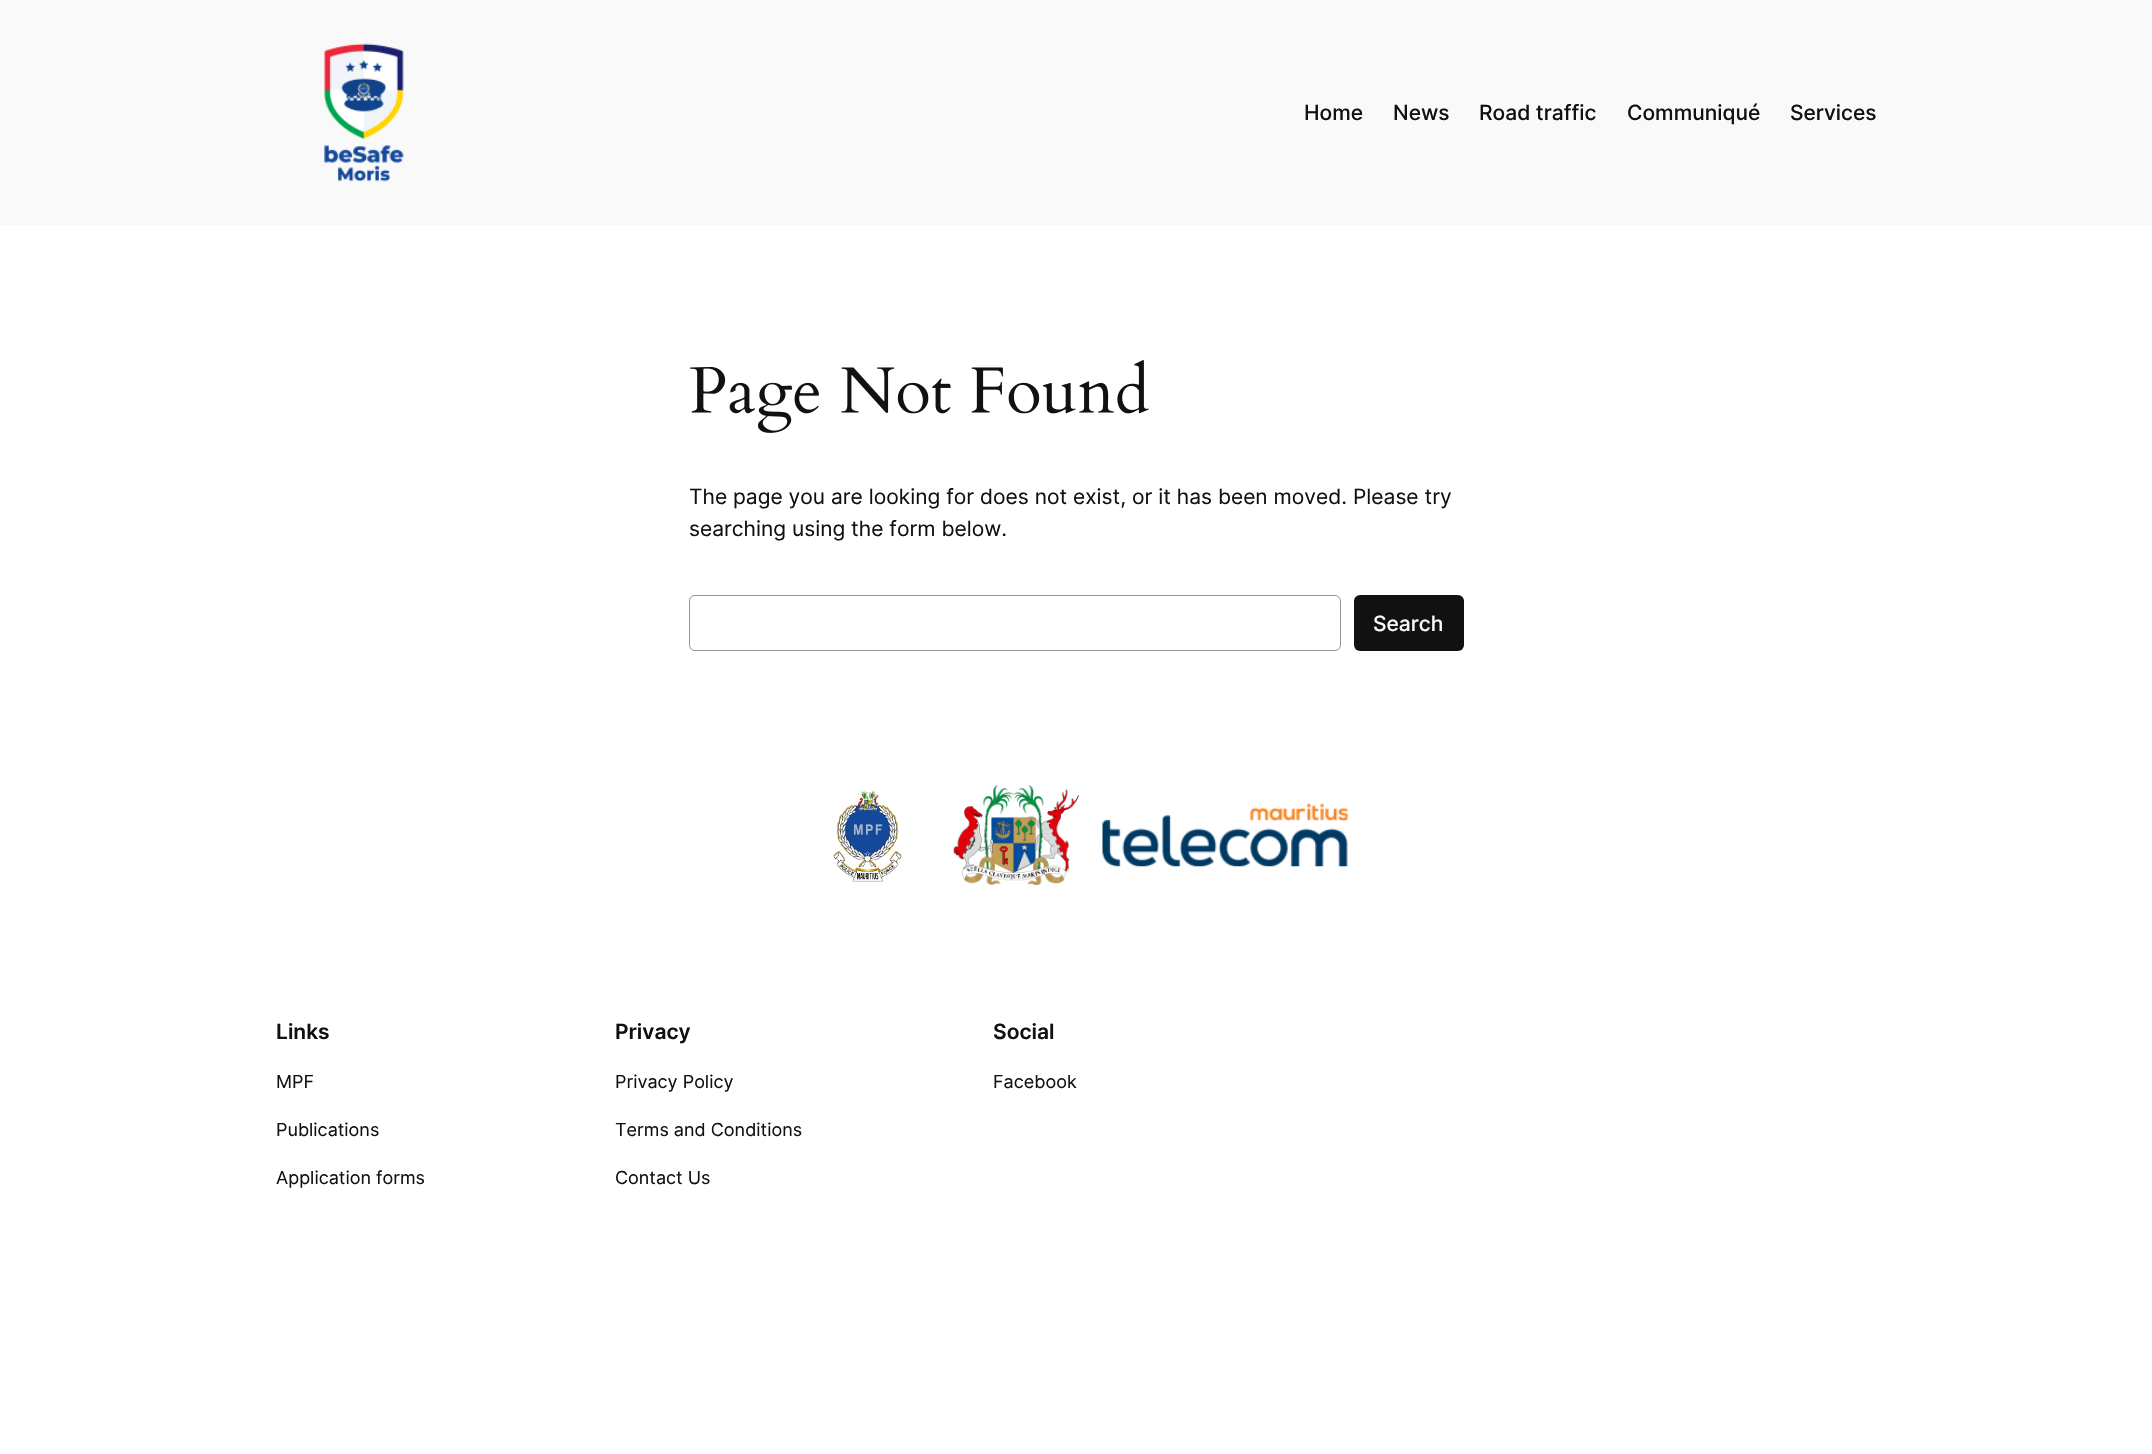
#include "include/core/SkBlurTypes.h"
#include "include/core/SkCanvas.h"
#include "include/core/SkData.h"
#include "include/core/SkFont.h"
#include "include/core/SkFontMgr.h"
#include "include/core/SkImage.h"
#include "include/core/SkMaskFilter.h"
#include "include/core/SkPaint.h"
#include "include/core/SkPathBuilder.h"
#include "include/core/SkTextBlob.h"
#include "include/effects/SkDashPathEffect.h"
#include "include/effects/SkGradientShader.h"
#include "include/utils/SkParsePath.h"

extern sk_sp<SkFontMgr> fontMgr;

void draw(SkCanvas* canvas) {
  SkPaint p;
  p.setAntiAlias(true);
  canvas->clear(SK_ColorWHITE);
  p.setColor(SkColorSetRGB(249, 249, 249));
  canvas->drawRect(SkRect::MakeLTRB(0, 0, 2152, 225), p);
  canvas->drawImageRect(SkImages::DeferredFromEncodedData(SkData::MakeFromFileName("images/1.png")), SkRect::MakeLTRB(324, 43, 404, 182), SkSamplingOptions());
  canvas->drawImageRect(SkImages::DeferredFromEncodedData(SkData::MakeFromFileName("images/2.png")), SkRect::MakeLTRB(690, 360, 1149, 433), SkSamplingOptions());
  p.setStyle(SkPaint::kStroke_Style);
  p.setStrokeWidth(1);
  p.setColor(SkColorSetRGB(148, 148, 148));
  canvas->drawRoundRect(SkRect::MakeLTRB(689.5f, 595.5f, 1340.5f, 650.5f), 5.5f, 5.5f, p);
  p.setStyle(SkPaint::kFill_Style);
  p.setColor(SkColorSetRGB(17, 17, 17));
  canvas->drawRoundRect(SkRect::MakeLTRB(1354, 595, 1464, 651), 6, 6, p);
  canvas->drawImageRect(SkImages::DeferredFromEncodedData(SkData::MakeFromFileName("images/3.png")), SkRect::MakeLTRB(833, 791, 902, 882), SkSamplingOptions());
  canvas->drawImageRect(SkImages::DeferredFromEncodedData(SkData::MakeFromFileName("images/4.png")), SkRect::MakeLTRB(953, 785, 1079, 885), SkSamplingOptions());
  canvas->drawImageRect(SkImages::DeferredFromEncodedData(SkData::MakeFromFileName("images/5.png")), SkRect::MakeLTRB(1102, 803, 1348, 867), SkSamplingOptions());
  SkFont font1(fontMgr->matchFamilyStyle("Inter", SkFontStyle(500, SkFontStyle::kNormal_Width, SkFontStyle::kUpright_Slant)), 21);
  font1.setSubpixel(true);
  canvas->drawString("Home", 1304, 120, font1, p);
  canvas->drawString("News", 1393, 120, font1, p);
  canvas->drawString("Road traffic", 1479, 120, font1, p);
  canvas->drawString("Communiqué", 1627, 120, font1, p);
  canvas->drawString("Services", 1790, 120, font1, p);
  SkFont font2(fontMgr->matchFamilyStyle("Inter", SkFontStyle::Normal()), 21);
  font2.setSubpixel(true);
  canvas->drawString("The page you are looking for does not exist, or it has been moved. Please try", 689, 504, font2, p);
  canvas->drawString("searching using the form below.", 689, 536, font2, p);
  p.setColor(SkColorSetRGB(249, 249, 249));
  canvas->drawString("Search", 1373, 631, font1, p);
  SkFont font3(fontMgr->matchFamilyStyle("Inter", SkFontStyle(600, SkFontStyle::kNormal_Width, SkFontStyle::kUpright_Slant)), 21);
  font3.setSubpixel(true);
  p.setColor(SkColorSetRGB(17, 17, 17));
  canvas->drawString("Links", 276, 1039, font3, p);
  SkFont font4(fontMgr->matchFamilyStyle("Inter", SkFontStyle::Normal()), 18);
  font4.setSubpixel(true);
  canvas->drawString("MPF", 276, 1088, font4, p);
  canvas->drawString("Publications", 276, 1136, font4, p);
  canvas->drawString("Application forms", 276, 1184, font4, p);
  canvas->drawString("Privacy", 615, 1039, font3, p);
  canvas->drawString("Privacy Policy", 615, 1088, font4, p);
  canvas->drawString("Terms and Conditions", 615, 1136, font4, p);
  canvas->drawString("Contact Us", 615, 1184, font4, p);
  canvas->drawString("Social", 993, 1039, font3, p);
  canvas->drawString("Facebook", 993, 1088, font4, p);
}
